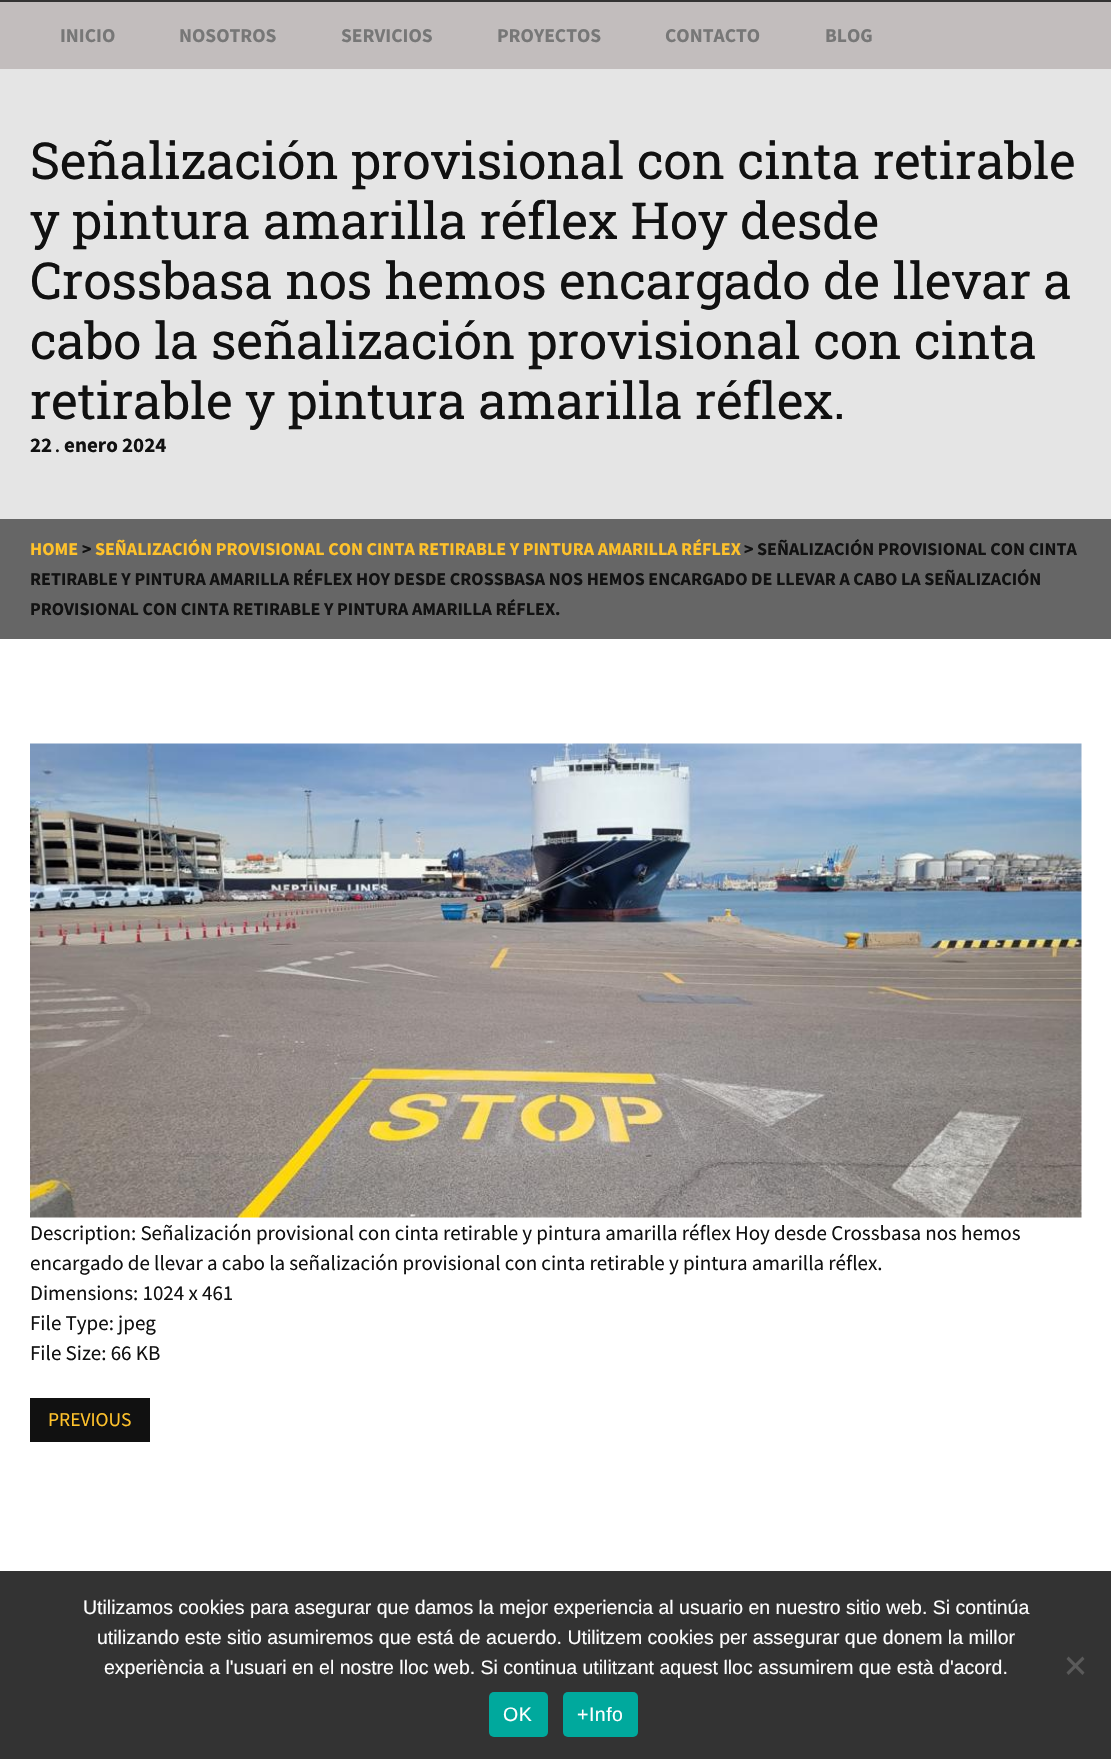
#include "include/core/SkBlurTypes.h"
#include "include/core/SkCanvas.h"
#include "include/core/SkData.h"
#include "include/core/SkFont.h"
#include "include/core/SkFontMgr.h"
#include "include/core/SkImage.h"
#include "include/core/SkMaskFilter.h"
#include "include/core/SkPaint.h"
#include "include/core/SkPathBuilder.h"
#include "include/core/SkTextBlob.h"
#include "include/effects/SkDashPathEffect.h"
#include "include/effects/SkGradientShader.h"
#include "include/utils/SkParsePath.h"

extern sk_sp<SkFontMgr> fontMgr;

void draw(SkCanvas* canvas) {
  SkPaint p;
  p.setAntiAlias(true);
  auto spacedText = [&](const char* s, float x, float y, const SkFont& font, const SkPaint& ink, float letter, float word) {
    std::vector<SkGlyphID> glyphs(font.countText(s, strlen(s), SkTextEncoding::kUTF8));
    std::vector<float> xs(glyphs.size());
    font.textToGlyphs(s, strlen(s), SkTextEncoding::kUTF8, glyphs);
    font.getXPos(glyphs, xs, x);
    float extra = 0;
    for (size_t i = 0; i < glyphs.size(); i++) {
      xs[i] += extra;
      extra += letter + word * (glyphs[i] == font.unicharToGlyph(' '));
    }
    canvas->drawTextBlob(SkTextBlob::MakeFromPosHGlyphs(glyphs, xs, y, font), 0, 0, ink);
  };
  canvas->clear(SK_ColorWHITE);
  p.setColor(SkColorSetRGB(51, 51, 51));
  canvas->drawRect(SkRect::MakeLTRB(0, 0, 1111, 2), p);
  p.setColor(SkColorSetRGB(194, 189, 189));
  canvas->drawRect(SkRect::MakeLTRB(0, 2, 1111, 69), p);
  p.setColor(SkColorSetRGB(229, 229, 229));
  canvas->drawRect(SkRect::MakeLTRB(0, 69, 1111, 519), p);
  p.setColor(SkColorSetRGB(102, 102, 102));
  canvas->drawRect(SkRect::MakeLTRB(0, 519, 1111, 639), p);
  canvas->drawImageRect(SkImages::DeferredFromEncodedData(SkData::MakeFromFileName("images/1.png")), SkRect::MakeLTRB(30, 743, 1082, 1218), SkSamplingOptions());
  p.setColor(SkColorSetRGB(17, 17, 17));
  canvas->drawRect(SkRect::MakeLTRB(30, 1398, 150, 1442), p);
  p.setColor(SkColorSetRGB(51, 51, 51));
  canvas->drawRect(SkRect::MakeLTRB(0, 1571, 1111, 1759), p);
  p.setColor(SkColorSetRGB(90, 90, 90));
  canvas->drawPath(SkPathBuilder().moveTo(1082.5f, 1656.5f).lineTo(1084.5f, 1659).lineTo(1068.5f, 1675).lineTo(1066.5f, 1672.5f).close().detach(), p);
  canvas->drawPath(SkPathBuilder().moveTo(1066.5f, 1659).lineTo(1068.5f, 1656.5f).lineTo(1084.5f, 1672.5f).lineTo(1082.5f, 1675).close().detach(), p);
  p.setColor(SkColorSetRGB(0, 169, 157));
  canvas->drawRoundRect(SkRect::MakeLTRB(489, 1692, 548, 1737), 5, 5, p);
  canvas->drawRoundRect(SkRect::MakeLTRB(563, 1692, 638, 1737), 5, 5, p);
  SkFont font1(fontMgr->matchFamilyStyle("Source Sans Pro", SkFontStyle::Bold()), 19.5f);
  font1.setSubpixel(true);
  p.setColor(SkColorSetRGB(119, 119, 119));
  canvas->drawString("INICIO", 60, 42, font1, p);
  canvas->drawString("NOSOTROS", 179, 42, font1, p);
  canvas->drawString("SERVICIOS", 341, 42, font1, p);
  canvas->drawString("PROYECTOS", 497, 42, font1, p);
  canvas->drawString("CONTACTO", 665, 42, font1, p);
  canvas->drawString("BLOG", 825, 42, font1, p);
  SkFont font2(fontMgr->matchFamilyStyle("Roboto Slab", SkFontStyle::Normal()), 51);
  font2.setSubpixel(true);
  p.setColor(SkColorSetRGB(17, 17, 17));
  canvas->drawString("Señalización provisional con cinta retirable", 30, 179, font2, p);
  canvas->drawString("y pintura amarilla réflex Hoy desde", 30, 239, font2, p);
  canvas->drawString("Crossbasa nos hemos encargado de llevar a", 30, 299, font2, p);
  canvas->drawString("cabo la señalización provisional con cinta", 30, 359, font2, p);
  canvas->drawString("retirable y pintura amarilla réflex.", 30, 419, font2, p);
  SkFont font3(fontMgr->matchFamilyStyle("Source Sans Pro", SkFontStyle::Bold()), 21);
  font3.setSubpixel(true);
  canvas->drawString("22", 30, 452, font3, p);
  SkFont font4(fontMgr->matchFamilyStyle("Source Sans Pro", SkFontStyle::Bold()), 16);
  font4.setSubpixel(true);
  canvas->drawString(".", 55, 452, font4, p);
  canvas->drawString("enero 2024", 64, 452, font3, p);
  SkFont font5(fontMgr->matchFamilyStyle("Source Sans Pro", SkFontStyle::Bold()), 18);
  font5.setSubpixel(true);
  p.setColor(SkColorSetRGB(255, 194, 43));
  canvas->drawString("HOME", 30, 555, font5, p);
  p.setColor(SkColorSetRGB(17, 17, 17));
  canvas->drawString(">", 82, 555, font5, p);
  p.setColor(SkColorSetRGB(255, 194, 43));
  canvas->drawString("SEÑALIZACIÓN PROVISIONAL CON CINTA RETIRABLE Y PINTURA AMARILLA RÉFLEX", 95, 555, font5, p);
  p.setColor(SkColorSetRGB(17, 17, 17));
  canvas->drawString("> SEÑALIZACIÓN PROVISIONAL CON CINTA", 744, 555, font5, p);
  canvas->drawString("RETIRABLE Y PINTURA AMARILLA RÉFLEX HOY DESDE CROSSBASA NOS HEMOS ENCARGADO DE LLEVAR A CABO LA SEÑALIZACIÓN", 30, 585, font5, p);
  canvas->drawString("PROVISIONAL CON CINTA RETIRABLE Y PINTURA AMARILLA RÉFLEX.", 30, 615, font5, p);
  SkFont font6(fontMgr->matchFamilyStyle("Source Sans Pro", SkFontStyle::Normal()), 21);
  font6.setSubpixel(true);
  canvas->drawString("Description: Señalización provisional con cinta retirable y pintura amarilla réflex Hoy desde Crossbasa nos hemos", 30, 1240, font6, p);
  canvas->drawString("encargado de llevar a cabo la señalización provisional con cinta retirable y pintura amarilla réflex.", 30, 1270, font6, p);
  canvas->drawString("Dimensions: 1024 x 461", 30, 1300, font6, p);
  canvas->drawString("File Type: jpeg", 30, 1330, font6, p);
  canvas->drawString("File Size: 66 KB", 30, 1360, font6, p);
  SkFont font7(fontMgr->matchFamilyStyle("Source Sans Pro", SkFontStyle::Normal()), 19.5f);
  font7.setSubpixel(true);
  p.setColor(SkColorSetRGB(255, 194, 43));
  canvas->drawString("PREVIOUS", 48, 1426, font7, p);
  SkFont font8(fontMgr->matchFamilyStyle("Liberation Sans", SkFontStyle::Normal()), 19.5f);
  font8.setSubpixel(true);
  p.setColor(SK_ColorWHITE);
  canvas->drawString("Utilizamos cookies para asegurar que damos la mejor experiencia al usuario en nuestro sitio web. Si continúa", 83, 1614, font8, p);
  canvas->drawString("utilizando este sitio asumiremos que está de acuerdo. Utilitzem cookies per assegurar que donem la millor", 97, 1644, font8, p);
  canvas->drawString("experiència a l'usuari en el nostre lloc web. Si continua utilitzant aquest lloc assumirem que està d'acord.", 104, 1674, font8, p);
  spacedText("OK", 503, 1721, font8, p, 0.5f, 0);
  spacedText("+Info", 577, 1721, font8, p, 0.5f, 0);
}
